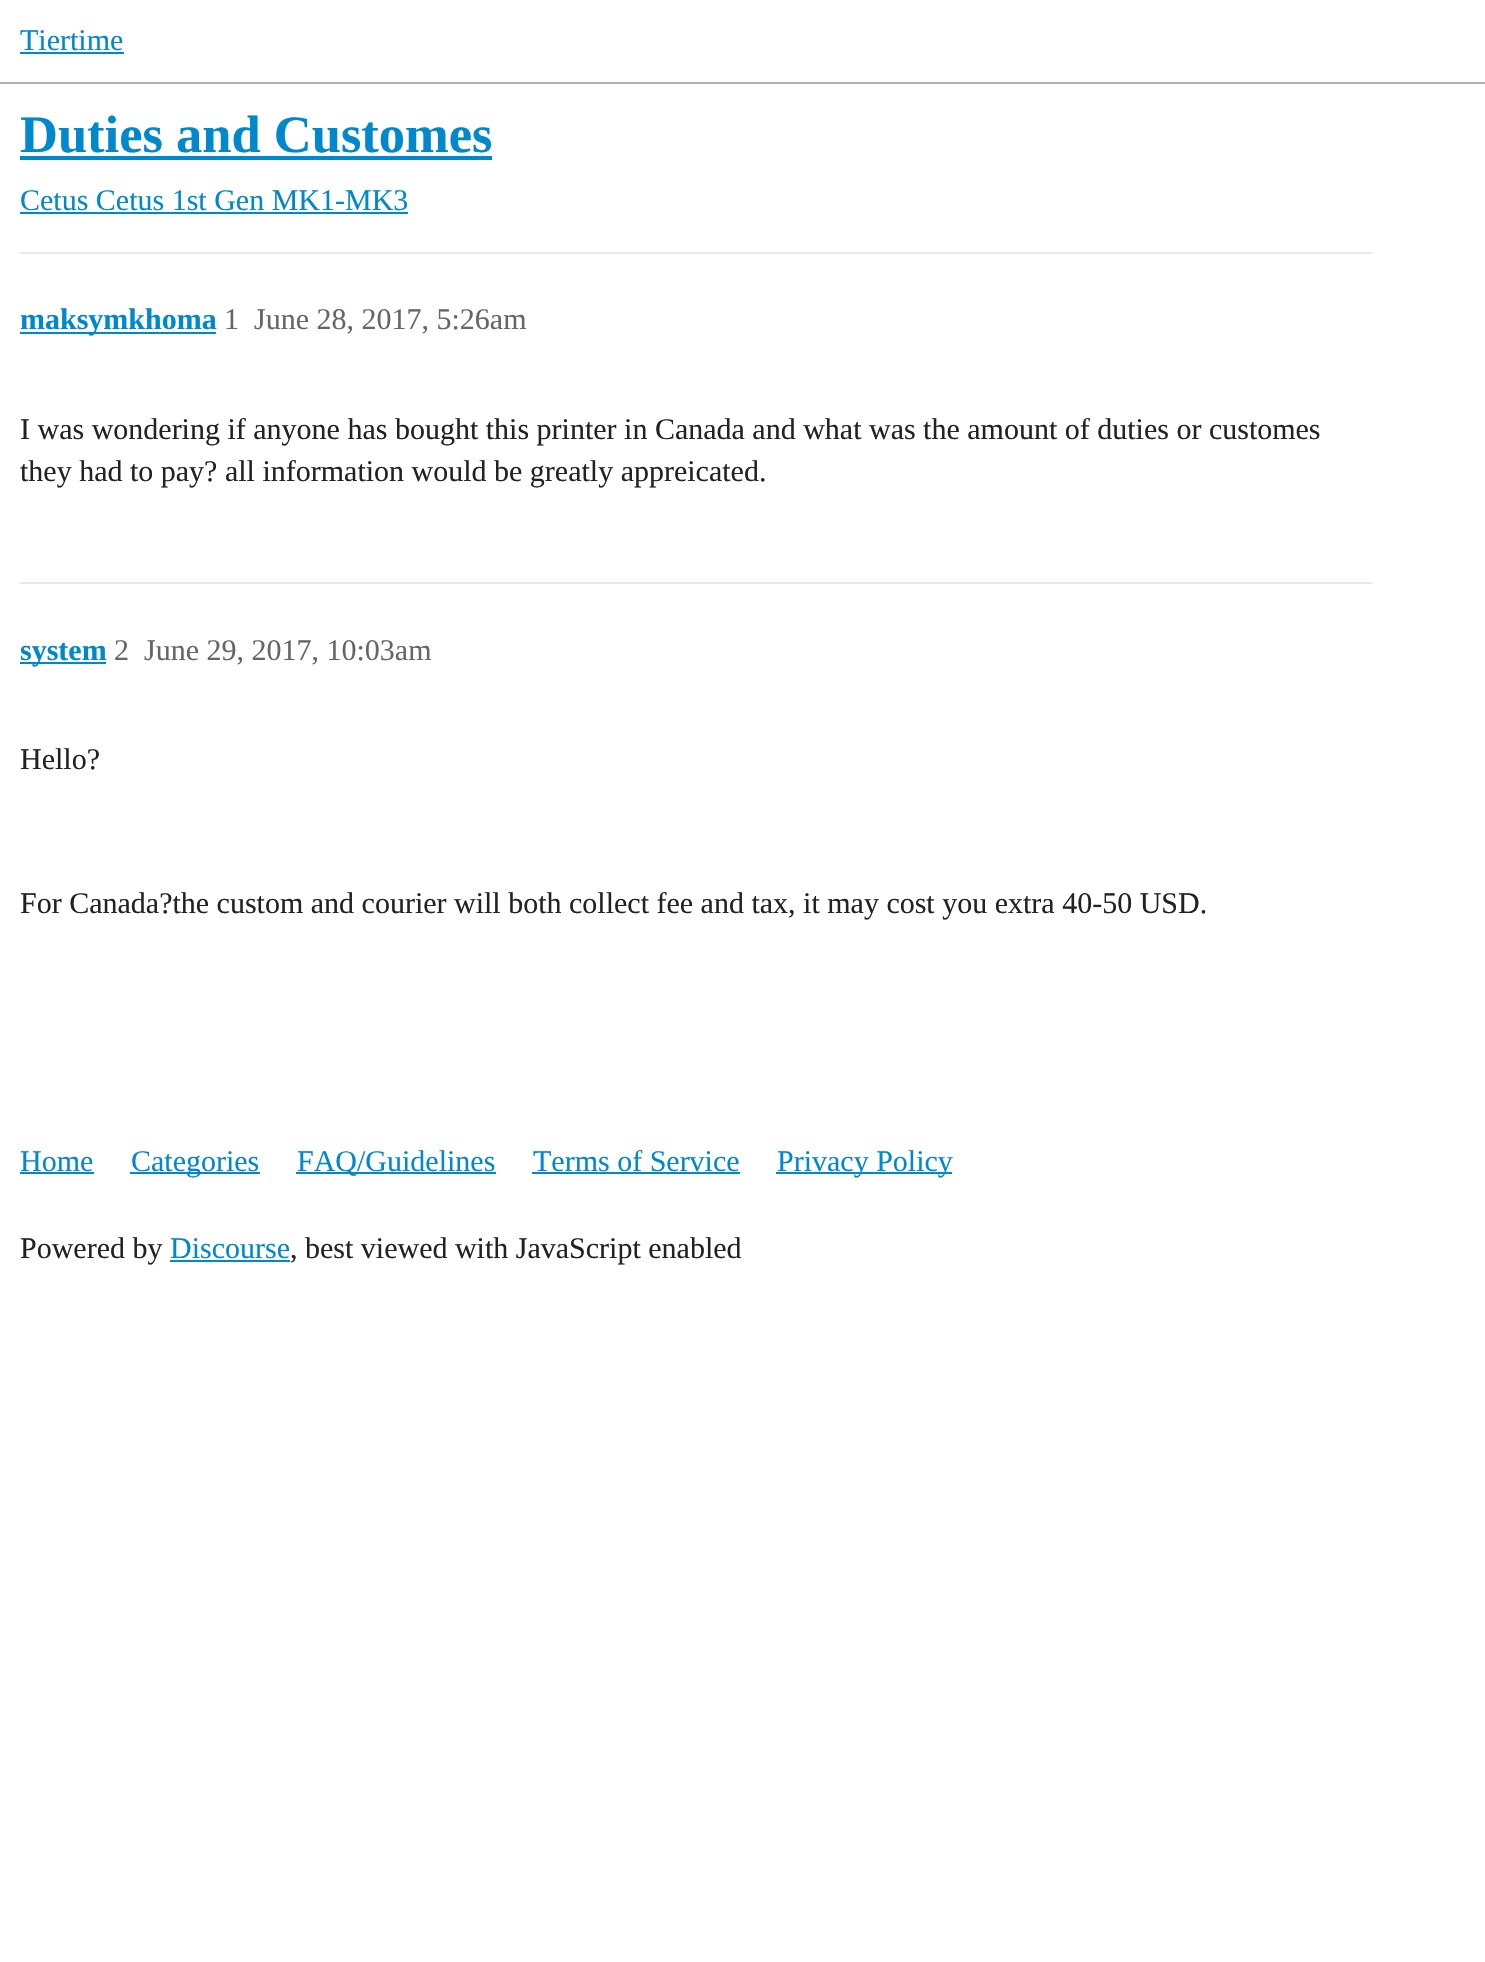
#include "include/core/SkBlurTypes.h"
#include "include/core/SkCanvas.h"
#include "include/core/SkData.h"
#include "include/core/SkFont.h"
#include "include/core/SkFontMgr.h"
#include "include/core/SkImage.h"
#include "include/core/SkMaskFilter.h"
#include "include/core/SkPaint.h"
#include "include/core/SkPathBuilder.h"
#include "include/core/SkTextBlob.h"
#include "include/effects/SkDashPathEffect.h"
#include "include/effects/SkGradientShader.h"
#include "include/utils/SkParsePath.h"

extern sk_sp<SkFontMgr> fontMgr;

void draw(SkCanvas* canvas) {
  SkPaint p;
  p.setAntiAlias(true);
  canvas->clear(SK_ColorWHITE);
  p.setColor(SkColorSetRGB(175, 175, 175));
  canvas->drawRect(SkRect::MakeLTRB(0, 82, 1485, 84), p);
  p.setColor(SkColorSetRGB(0, 136, 204));
  canvas->drawRect(SkRect::MakeLTRB(20, 52, 124, 54), p);
  canvas->drawRect(SkRect::MakeLTRB(20, 156, 492, 160), p);
  canvas->drawRect(SkRect::MakeLTRB(20, 212, 408, 214), p);
  p.setColor(SkColorSetRGB(233, 233, 233));
  canvas->drawRect(SkRect::MakeLTRB(20, 252, 1372, 254), p);
  p.setColor(SkColorSetRGB(0, 136, 204));
  canvas->drawRect(SkRect::MakeLTRB(20, 332, 216, 334), p);
  p.setColor(SkColorSetRGB(233, 233, 233));
  canvas->drawRect(SkRect::MakeLTRB(20, 582, 1372, 584), p);
  p.setColor(SkColorSetRGB(0, 136, 204));
  canvas->drawRect(SkRect::MakeLTRB(20, 662, 106, 664), p);
  canvas->drawRect(SkRect::MakeLTRB(20, 1172, 94, 1174), p);
  canvas->drawRect(SkRect::MakeLTRB(130, 1172, 260, 1174), p);
  canvas->drawRect(SkRect::MakeLTRB(296, 1172, 496, 1174), p);
  canvas->drawRect(SkRect::MakeLTRB(532, 1172, 740, 1174), p);
  canvas->drawRect(SkRect::MakeLTRB(776, 1172, 952, 1174), p);
  canvas->drawRect(SkRect::MakeLTRB(170, 1260, 290, 1262), p);
  SkFont font1(fontMgr->matchFamilyStyle("Liberation Serif", SkFontStyle::Normal()), 30);
  font1.setSubpixel(true);
  canvas->drawString("Tiertime", 20, 50, font1, p);
  SkFont font2(fontMgr->matchFamilyStyle("Liberation Serif", SkFontStyle::Bold()), 52.5f);
  font2.setSubpixel(true);
  canvas->drawString("Duties and Customes", 20, 152, font2, p);
  canvas->drawString("Cetus Cetus 1st Gen MK1-MK3", 20, 210, font1, p);
  SkFont font3(fontMgr->matchFamilyStyle("Liberation Serif", SkFontStyle::Bold()), 30);
  font3.setSubpixel(true);
  canvas->drawString("maksymkhoma", 20, 329, font3, p);
  p.setColor(SkColorSetRGB(102, 102, 102));
  canvas->drawString("1", 224, 329, font1, p);
  canvas->drawString("June 28, 2017, 5:26am", 254, 329, font1, p);
  p.setColor(SkColorSetRGB(34, 34, 34));
  canvas->drawString("I was wondering if anyone has bought this printer in Canada and what was the amount of duties or customes", 20, 439, font1, p);
  canvas->drawString("they had to pay? all information would be greatly appreicated.", 20, 481, font1, p);
  p.setColor(SkColorSetRGB(0, 136, 204));
  canvas->drawString("system", 20, 660, font3, p);
  p.setColor(SkColorSetRGB(102, 102, 102));
  canvas->drawString("2", 114, 660, font1, p);
  canvas->drawString("June 29, 2017, 10:03am", 144, 660, font1, p);
  p.setColor(SkColorSetRGB(34, 34, 34));
  canvas->drawString("Hello?", 20, 769, font1, p);
  canvas->drawString("For Canada?the custom and courier will both collect fee and tax, it may cost you extra 40-50 USD.", 20, 913, font1, p);
  p.setColor(SkColorSetRGB(0, 136, 204));
  canvas->drawString("Home", 20, 1171, font1, p);
  canvas->drawString("Categories", 131, 1171, font1, p);
  canvas->drawString("FAQ/Guidelines", 297, 1171, font1, p);
  canvas->drawString("Terms of Service", 533, 1171, font1, p);
  canvas->drawString("Privacy Policy", 777, 1171, font1, p);
  p.setColor(SkColorSetRGB(34, 34, 34));
  canvas->drawString("Powered by", 20, 1258, font1, p);
  p.setColor(SkColorSetRGB(0, 136, 204));
  canvas->drawString("Discourse", 170, 1258, font1, p);
  p.setColor(SkColorSetRGB(34, 34, 34));
  canvas->drawString(", best viewed with JavaScript enabled", 290, 1258, font1, p);
}
